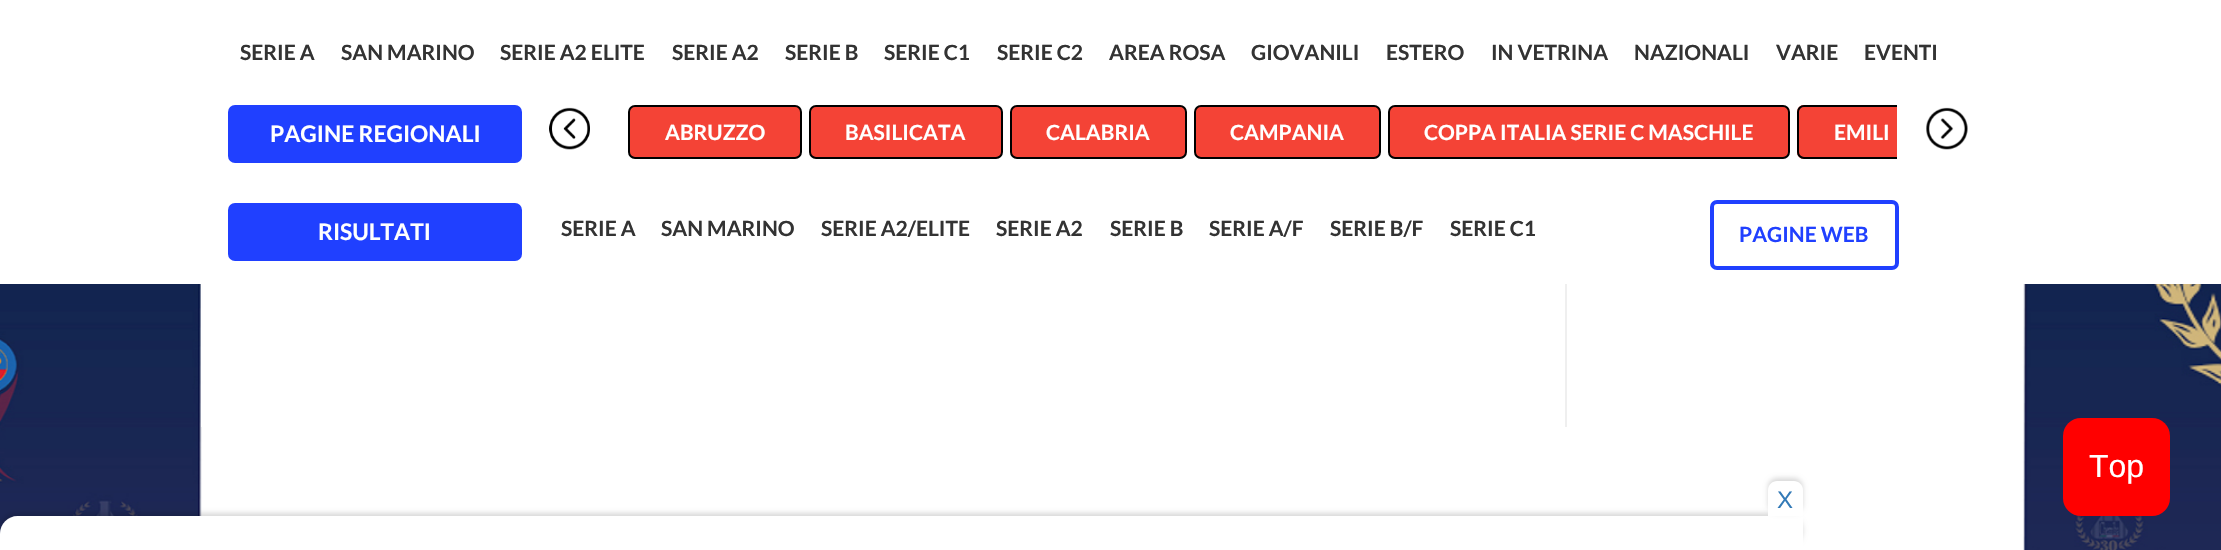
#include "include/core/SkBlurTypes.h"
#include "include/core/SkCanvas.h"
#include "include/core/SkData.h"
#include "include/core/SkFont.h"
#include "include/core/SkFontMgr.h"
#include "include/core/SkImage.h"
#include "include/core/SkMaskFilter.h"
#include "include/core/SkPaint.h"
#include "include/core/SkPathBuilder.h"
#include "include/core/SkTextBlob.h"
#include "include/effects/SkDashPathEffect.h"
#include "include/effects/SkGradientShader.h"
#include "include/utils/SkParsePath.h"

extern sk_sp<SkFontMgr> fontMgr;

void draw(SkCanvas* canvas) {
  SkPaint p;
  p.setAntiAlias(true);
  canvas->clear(SK_ColorWHITE);
  canvas->drawImageRect(SkImages::DeferredFromEncodedData(SkData::MakeFromFileName("images/1.png")), SkRect::MakeLTRB(0, 284, 2221, 550), SkSamplingOptions());
  p.setColor(SkColorSetRGB(32, 64, 255));
  canvas->drawRoundRect(SkRect::MakeLTRB(228, 105, 522, 163), 7, 7, p);
  canvas->drawImageRect(SkImages::DeferredFromEncodedData(SkData::MakeFromFileName("images/2.png")), SkRect::MakeLTRB(549, 107, 590, 150), SkSamplingOptions());
  p.setColor(SkColorSetRGB(244, 67, 54));
  canvas->drawRoundRect(SkRect::MakeLTRB(629, 106, 801, 158), 6, 6, p);
  p.setStyle(SkPaint::kStroke_Style);
  p.setStrokeWidth(2);
  p.setColor(SK_ColorBLACK);
  canvas->drawRoundRect(SkRect::MakeLTRB(629, 106, 801, 158), 6, 6, p);
  p.setStyle(SkPaint::kFill_Style);
  p.setColor(SkColorSetRGB(244, 67, 54));
  canvas->drawRoundRect(SkRect::MakeLTRB(810, 106, 1002, 158), 6, 6, p);
  p.setStyle(SkPaint::kStroke_Style);
  p.setColor(SK_ColorBLACK);
  canvas->drawRoundRect(SkRect::MakeLTRB(810, 106, 1002, 158), 6, 6, p);
  p.setStyle(SkPaint::kFill_Style);
  p.setColor(SkColorSetRGB(244, 67, 54));
  canvas->drawRoundRect(SkRect::MakeLTRB(1011, 106, 1186, 158), 6, 6, p);
  p.setStyle(SkPaint::kStroke_Style);
  p.setColor(SK_ColorBLACK);
  canvas->drawRoundRect(SkRect::MakeLTRB(1011, 106, 1186, 158), 6, 6, p);
  p.setStyle(SkPaint::kFill_Style);
  p.setColor(SkColorSetRGB(244, 67, 54));
  canvas->drawRoundRect(SkRect::MakeLTRB(1195, 106, 1380, 158), 6, 6, p);
  p.setStyle(SkPaint::kStroke_Style);
  p.setColor(SK_ColorBLACK);
  canvas->drawRoundRect(SkRect::MakeLTRB(1195, 106, 1380, 158), 6, 6, p);
  p.setStyle(SkPaint::kFill_Style);
  p.setColor(SkColorSetRGB(244, 67, 54));
  canvas->drawRoundRect(SkRect::MakeLTRB(1389, 106, 1789, 158), 6, 6, p);
  p.setStyle(SkPaint::kStroke_Style);
  p.setColor(SK_ColorBLACK);
  canvas->drawRoundRect(SkRect::MakeLTRB(1389, 106, 1789, 158), 6, 6, p);
  p.setStyle(SkPaint::kFill_Style);
  p.setColor(SkColorSetRGB(244, 67, 54));
  canvas->drawPath(SkPathBuilder().moveTo(1804, 105).lineTo(1897, 105).lineTo(1897, 159).lineTo(1804, 159).cubicTo(1800, 159, 1797, 156, 1797, 152).lineTo(1797, 112).cubicTo(1797, 108, 1800, 105, 1804, 105).close().detach(), p);
  canvas->save();
  canvas->clipRect(SkRect::MakeLTRB(620, 105, 1897, 159));
  p.setStyle(SkPaint::kStroke_Style);
  p.setColor(SK_ColorBLACK);
  canvas->drawRoundRect(SkRect::MakeLTRB(1798, 106, 2055, 158), 6, 6, p);
  canvas->restore();
  canvas->drawImageRect(SkImages::DeferredFromEncodedData(SkData::MakeFromFileName("images/3.png")), SkRect::MakeLTRB(1926, 107, 1968, 150), SkSamplingOptions());
  p.setStyle(SkPaint::kFill_Style);
  p.setColor(SkColorSetRGB(32, 64, 255));
  canvas->drawRoundRect(SkRect::MakeLTRB(228, 203, 522, 261), 7, 7, p);
  p.setStyle(SkPaint::kStroke_Style);
  p.setStrokeWidth(4);
  canvas->drawRoundRect(SkRect::MakeLTRB(1712, 202, 1897, 268), 5, 5, p);
  p.setStyle(SkPaint::kFill_Style);
  p.setColor(SK_ColorWHITE);
  canvas->drawRect(SkRect::MakeLTRB(201, 284, 202, 427), p);
  p.setColor(SkColorSetRGB(239, 239, 239));
  canvas->drawRect(SkRect::MakeLTRB(1565, 284, 1567, 427), p);
  p.setColor(SkColorSetRGB(255, 0, 0));
  canvas->drawRoundRect(SkRect::MakeLTRB(2063, 418, 2170, 516), 18, 18, p);
  p.setColor(SkColorSetARGB(38, 0, 0, 0));
  p.setMaskFilter(SkMaskFilter::MakeBlur(kNormal_SkBlurStyle, 2.5f));
  canvas->drawRoundRect(SkRect::MakeLTRB(0, 513, 1803, 548), 17.5f, 17.5f, p);
  p.setMaskFilter(nullptr);
  p.setColor(SK_ColorWHITE);
  canvas->drawPath(SkPathBuilder().moveTo(17.5f, 516).lineTo(1803, 516).lineTo(1803, 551).lineTo(0, 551).lineTo(0, 533.5f).cubicTo(0, 524, 8, 516, 17.5f, 516).close().detach(), p);
  p.setColor(SkColorSetARGB(38, 0, 0, 0));
  p.setMaskFilter(SkMaskFilter::MakeBlur(kNormal_SkBlurStyle, 2.5f));
  canvas->drawRoundRect(SkRect::MakeLTRB(1768, 478, 1803, 513), 9, 9, p);
  p.setMaskFilter(nullptr);
  p.setColor(SK_ColorWHITE);
  canvas->drawPath(SkPathBuilder().moveTo(1777, 481).lineTo(1794, 481).cubicTo(1799, 481, 1803, 485, 1803, 490).lineTo(1803, 516).lineTo(1768, 516).lineTo(1768, 490).cubicTo(1768, 485, 1772, 481, 1777, 481).close().detach(), p);
  SkFont font1(fontMgr->matchFamilyStyle("Lato", SkFontStyle::Bold()), 21);
  font1.setSubpixel(true);
  p.setColor(SkColorSetRGB(51, 51, 51));
  canvas->drawString("SERIE A", 240, 60, font1, p);
  canvas->drawString("SAN MARINO", 341, 60, font1, p);
  canvas->drawString("SERIE A2 ELITE", 500, 60, font1, p);
  canvas->drawString("SERIE A2", 672, 60, font1, p);
  canvas->drawString("SERIE B", 785, 60, font1, p);
  canvas->drawString("SERIE C1", 884, 60, font1, p);
  canvas->drawString("SERIE C2", 997, 60, font1, p);
  canvas->drawString("AREA ROSA", 1109, 60, font1, p);
  canvas->drawString("GIOVANILI", 1251, 60, font1, p);
  canvas->drawString("ESTERO", 1386, 60, font1, p);
  canvas->drawString("IN VETRINA", 1491, 60, font1, p);
  canvas->drawString("NAZIONALI", 1634, 60, font1, p);
  canvas->drawString("VARIE", 1776, 60, font1, p);
  canvas->drawString("EVENTI", 1864, 60, font1, p);
  SkFont font2(fontMgr->matchFamilyStyle("Lato", SkFontStyle::Bold()), 22.75f);
  font2.setSubpixel(true);
  p.setColor(SK_ColorWHITE);
  canvas->drawString("PAGINE REGIONALI", 270, 142, font2, p);
  canvas->drawString("ABRUZZO", 665, 140, font1, p);
  canvas->drawString("BASILICATA", 845, 140, font1, p);
  canvas->drawString("CALABRIA", 1046, 140, font1, p);
  canvas->drawString("CAMPANIA", 1230, 140, font1, p);
  canvas->drawString("COPPA ITALIA SERIE C MASCHILE", 1424, 140, font1, p);
  canvas->drawString("EMILI", 1834, 140, font1, p);
  canvas->drawString("RISULTATI", 318, 240, font2, p);
  p.setColor(SkColorSetRGB(51, 51, 51));
  canvas->drawString("SERIE A", 561, 236, font1, p);
  canvas->drawString("SAN MARINO", 661, 236, font1, p);
  canvas->drawString("SERIE A2/ELITE", 821, 236, font1, p);
  canvas->drawString("SERIE A2", 996, 236, font1, p);
  canvas->drawString("SERIE B", 1110, 236, font1, p);
  canvas->drawString("SERIE A/F", 1209, 236, font1, p);
  canvas->drawString("SERIE B/F", 1330, 236, font1, p);
  canvas->drawString("SERIE C1", 1450, 236, font1, p);
  p.setColor(SkColorSetRGB(32, 64, 255));
  canvas->drawString("PAGINE WEB", 1739, 242, font1, p);
  SkFont font3(fontMgr->matchFamilyStyle("Liberation Sans", SkFontStyle::Normal()), 32);
  font3.setSubpixel(true);
  p.setColor(SK_ColorWHITE);
  canvas->drawString("Top", 2089, 477, font3, p);
  SkFont font4(fontMgr->matchFamilyStyle("Liberation Sans", SkFontStyle::Normal()), 24);
  font4.setSubpixel(true);
  p.setColor(SkColorSetRGB(51, 122, 183));
  canvas->drawString("X", 1777, 508, font4, p);
}
